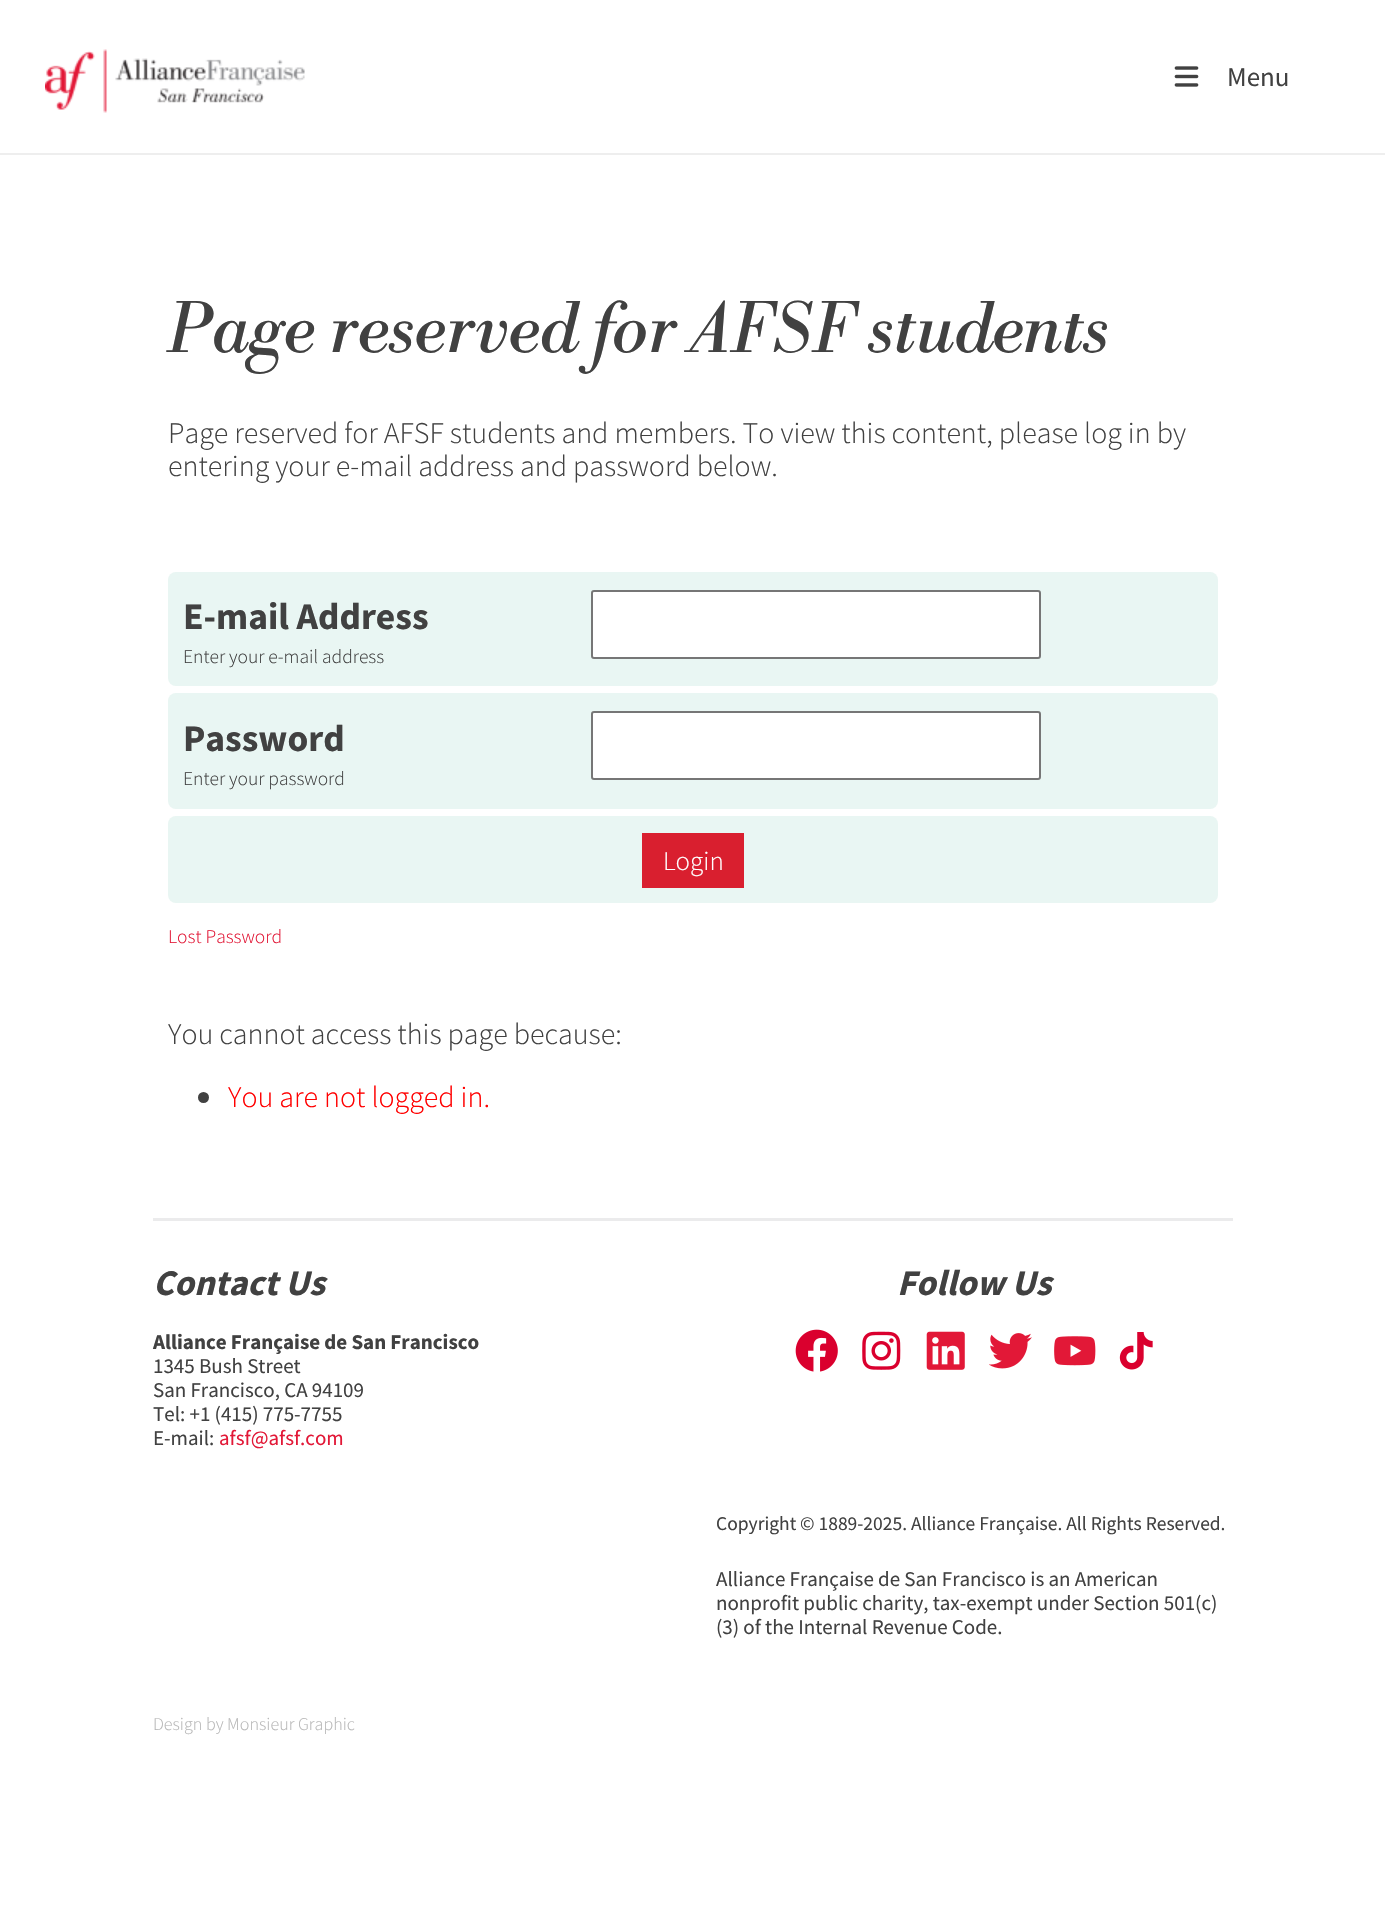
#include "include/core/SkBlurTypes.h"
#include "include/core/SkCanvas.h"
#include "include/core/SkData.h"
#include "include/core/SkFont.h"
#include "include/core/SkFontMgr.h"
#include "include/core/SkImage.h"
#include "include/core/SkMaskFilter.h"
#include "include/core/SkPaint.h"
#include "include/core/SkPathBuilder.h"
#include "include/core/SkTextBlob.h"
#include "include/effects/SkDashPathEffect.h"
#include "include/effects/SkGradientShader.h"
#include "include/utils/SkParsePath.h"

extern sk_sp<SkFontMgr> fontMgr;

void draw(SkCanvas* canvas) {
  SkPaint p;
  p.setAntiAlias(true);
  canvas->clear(SK_ColorWHITE);
  p.setColor(SkColorSetRGB(238, 238, 238));
  canvas->drawRect(SkRect::MakeLTRB(0, 153, 1385, 155), p);
  canvas->drawImageRect(SkImages::DeferredFromEncodedData(SkData::MakeFromFileName("images/1.png")), SkRect::MakeLTRB(45, 49, 305, 113), SkSamplingOptions());
  canvas->drawImageRect(SkImages::DeferredFromEncodedData(SkData::MakeFromFileName("images/2.png")), SkRect::MakeLTRB(1174, 66, 1199, 87), SkSamplingOptions());
  p.setColor(SkColorSetRGB(233, 246, 243));
  canvas->drawRoundRect(SkRect::MakeLTRB(168, 572, 1218, 686), 8, 8, p);
  p.setColor(SK_ColorWHITE);
  canvas->drawRoundRect(SkRect::MakeLTRB(592, 591, 1040, 658), 2, 2, p);
  p.setStyle(SkPaint::kStroke_Style);
  p.setStrokeWidth(2);
  p.setColor(SkColorSetRGB(118, 118, 118));
  canvas->drawRoundRect(SkRect::MakeLTRB(592, 591, 1040, 658), 2, 2, p);
  p.setStyle(SkPaint::kFill_Style);
  p.setColor(SkColorSetRGB(233, 246, 243));
  canvas->drawRoundRect(SkRect::MakeLTRB(168, 693, 1218, 809), 8, 8, p);
  p.setColor(SK_ColorWHITE);
  canvas->drawRoundRect(SkRect::MakeLTRB(592, 712, 1040, 779), 2, 2, p);
  p.setStyle(SkPaint::kStroke_Style);
  p.setColor(SkColorSetRGB(118, 118, 118));
  canvas->drawRoundRect(SkRect::MakeLTRB(592, 712, 1040, 779), 2, 2, p);
  p.setStyle(SkPaint::kFill_Style);
  p.setColor(SkColorSetRGB(233, 246, 243));
  canvas->drawRoundRect(SkRect::MakeLTRB(168, 816, 1218, 903), 8, 8, p);
  p.setColor(SkColorSetRGB(217, 31, 47));
  canvas->drawRect(SkRect::MakeLTRB(642, 833, 744, 888), p);
  p.setColor(SkColorSetRGB(65, 65, 65));
  canvas->drawCircle(203.5f, 1097.5f, 5.5f, p);
  p.setColor(SkColorSetRGB(235, 235, 236));
  canvas->drawRect(SkRect::MakeLTRB(153, 1218, 1233, 1221), p);
  canvas->drawImageRect(SkImages::DeferredFromEncodedData(SkData::MakeFromFileName("images/3.png")), SkRect::MakeLTRB(795, 1329, 838, 1372), SkSamplingOptions());
  canvas->drawImageRect(SkImages::DeferredFromEncodedData(SkData::MakeFromFileName("images/4.png")), SkRect::MakeLTRB(862, 1331, 901, 1370), SkSamplingOptions());
  canvas->drawImageRect(SkImages::DeferredFromEncodedData(SkData::MakeFromFileName("images/5.png")), SkRect::MakeLTRB(926, 1331, 965, 1370), SkSamplingOptions());
  canvas->drawImageRect(SkImages::DeferredFromEncodedData(SkData::MakeFromFileName("images/6.png")), SkRect::MakeLTRB(989, 1333, 1032, 1369), SkSamplingOptions());
  canvas->drawImageRect(SkImages::DeferredFromEncodedData(SkData::MakeFromFileName("images/7.png")), SkRect::MakeLTRB(1054, 1336, 1096, 1366), SkSamplingOptions());
  canvas->drawImageRect(SkImages::DeferredFromEncodedData(SkData::MakeFromFileName("images/8.png")), SkRect::MakeLTRB(1119, 1332, 1153, 1370), SkSamplingOptions());
  SkFont font1(fontMgr->matchFamilyStyle("Source Sans Pro", SkFontStyle::Normal()), 27);
  font1.setSubpixel(true);
  p.setColor(SkColorSetRGB(65, 65, 65));
  canvas->drawString("Menu", 1227, 86, font1, p);
  SkFont font2(fontMgr->matchFamilyStyle("Libre Bodoni", SkFontStyle::Italic()), 67.5f);
  font2.setSubpixel(true);
  canvas->drawString("Page reserved for AFSF students", 168, 352, font2, p);
  SkFont font3(fontMgr->matchFamilyStyle("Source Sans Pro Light", SkFontStyle(300, SkFontStyle::kNormal_Width, SkFontStyle::kUpright_Slant)), 30);
  font3.setSubpixel(true);
  canvas->drawString("Page reserved for AFSF students and members. To view this content, please log in by", 168, 443, font3, p);
  canvas->drawString("entering your e-mail address and password below.", 168, 476, font3, p);
  SkFont font4(fontMgr->matchFamilyStyle("Source Sans Pro", SkFontStyle::Bold()), 37.5f);
  font4.setSubpixel(true);
  canvas->drawString("E-mail Address", 183, 629, font4, p);
  SkFont font5(fontMgr->matchFamilyStyle("Source Sans Pro Light", SkFontStyle(300, SkFontStyle::kNormal_Width, SkFontStyle::kUpright_Slant)), 19.5f);
  font5.setSubpixel(true);
  canvas->drawString("Enter your e-mail address", 183, 663, font5, p);
  canvas->drawString("Password", 183, 751, font4, p);
  canvas->drawString("Enter your password", 183, 785, font5, p);
  SkFont font6(fontMgr->matchFamilyStyle("Source Sans Pro Light", SkFontStyle(300, SkFontStyle::kNormal_Width, SkFontStyle::kUpright_Slant)), 27);
  font6.setSubpixel(true);
  p.setColor(SK_ColorWHITE);
  canvas->drawString("Login", 663, 870, font6, p);
  p.setColor(SkColorSetRGB(226, 24, 55));
  canvas->drawString("Lost Password", 168, 943, font5, p);
  p.setColor(SkColorSetRGB(65, 65, 65));
  canvas->drawString("You cannot access this page because:", 168, 1044, font3, p);
  p.setColor(SkColorSetRGB(255, 0, 0));
  canvas->drawString("You are not logged in.", 228, 1107, font3, p);
  SkFont font7(fontMgr->matchFamilyStyle("Source Sans Pro", SkFontStyle::BoldItalic()), 36);
  font7.setSubpixel(true);
  p.setColor(SkColorSetRGB(65, 65, 65));
  canvas->drawString("Contact Us", 153, 1295, font7, p);
  SkFont font8(fontMgr->matchFamilyStyle("Source Sans Pro", SkFontStyle::Bold()), 21);
  font8.setSubpixel(true);
  canvas->drawString("Alliance Française de San Francisco", 153, 1349, font8, p);
  SkFont font9(fontMgr->matchFamilyStyle("Source Sans Pro", SkFontStyle::Normal()), 21);
  font9.setSubpixel(true);
  canvas->drawString("1345 Bush Street", 153, 1373, font9, p);
  canvas->drawString("San Francisco, CA 94109", 153, 1397, font9, p);
  canvas->drawString("Tel: +1 (415) 775-7755", 153, 1421, font9, p);
  canvas->drawString("E-mail:", 153, 1445, font9, p);
  p.setColor(SkColorSetRGB(226, 24, 55));
  canvas->drawString("afsf@afsf.com", 219, 1445, font9, p);
  p.setColor(SkColorSetRGB(65, 65, 65));
  canvas->drawString("Follow Us", 897, 1295, font7, p);
  SkFont font10(fontMgr->matchFamilyStyle("Source Sans Pro", SkFontStyle::Normal()), 19.5f);
  font10.setSubpixel(true);
  canvas->drawString("Copyright © 1889-2025. Alliance Française. All Rights Reserved.", 716, 1530, font10, p);
  canvas->drawString("Alliance Française de San Francisco is an American", 716, 1586, font9, p);
  canvas->drawString("nonprofit public charity, tax-exempt under Section 501(c)", 716, 1610, font9, p);
  canvas->drawString("(3) of the Internal Revenue Code.", 716, 1634, font9, p);
  SkFont font11(fontMgr->matchFamilyStyle("Source Sans Pro Light", SkFontStyle(300, SkFontStyle::kNormal_Width, SkFontStyle::kUpright_Slant)), 18);
  font11.setSubpixel(true);
  p.setColor(SkColorSetRGB(182, 182, 182));
  canvas->drawString("Design by Monsieur Graphic", 153, 1730, font11, p);
}
